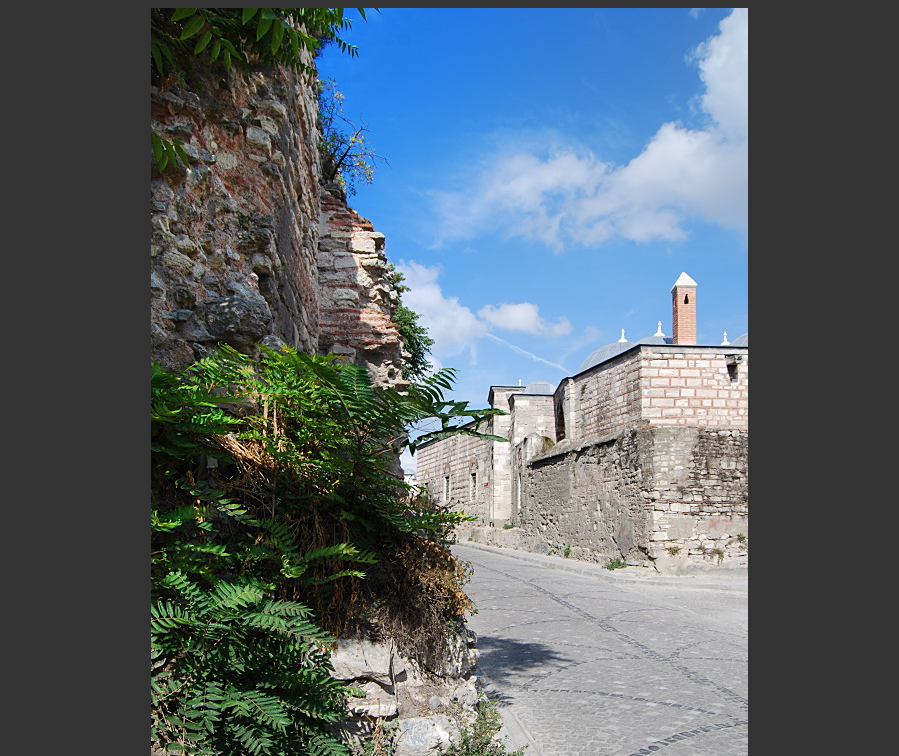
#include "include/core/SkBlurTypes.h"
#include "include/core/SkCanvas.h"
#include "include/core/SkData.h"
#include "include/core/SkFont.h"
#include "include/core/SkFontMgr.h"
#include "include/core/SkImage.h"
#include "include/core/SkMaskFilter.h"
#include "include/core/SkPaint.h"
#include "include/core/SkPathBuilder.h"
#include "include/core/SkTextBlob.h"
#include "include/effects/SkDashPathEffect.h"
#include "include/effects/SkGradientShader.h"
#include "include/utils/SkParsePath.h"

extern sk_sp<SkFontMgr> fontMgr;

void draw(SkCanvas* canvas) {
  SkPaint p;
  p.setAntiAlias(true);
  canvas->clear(SkColorSetRGB(51, 51, 51));
  canvas->drawImageRect(SkImages::DeferredFromEncodedData(SkData::MakeFromFileName("images/1.png")), SkRect::MakeLTRB(151, 8, 748, 756), SkSamplingOptions());
}
